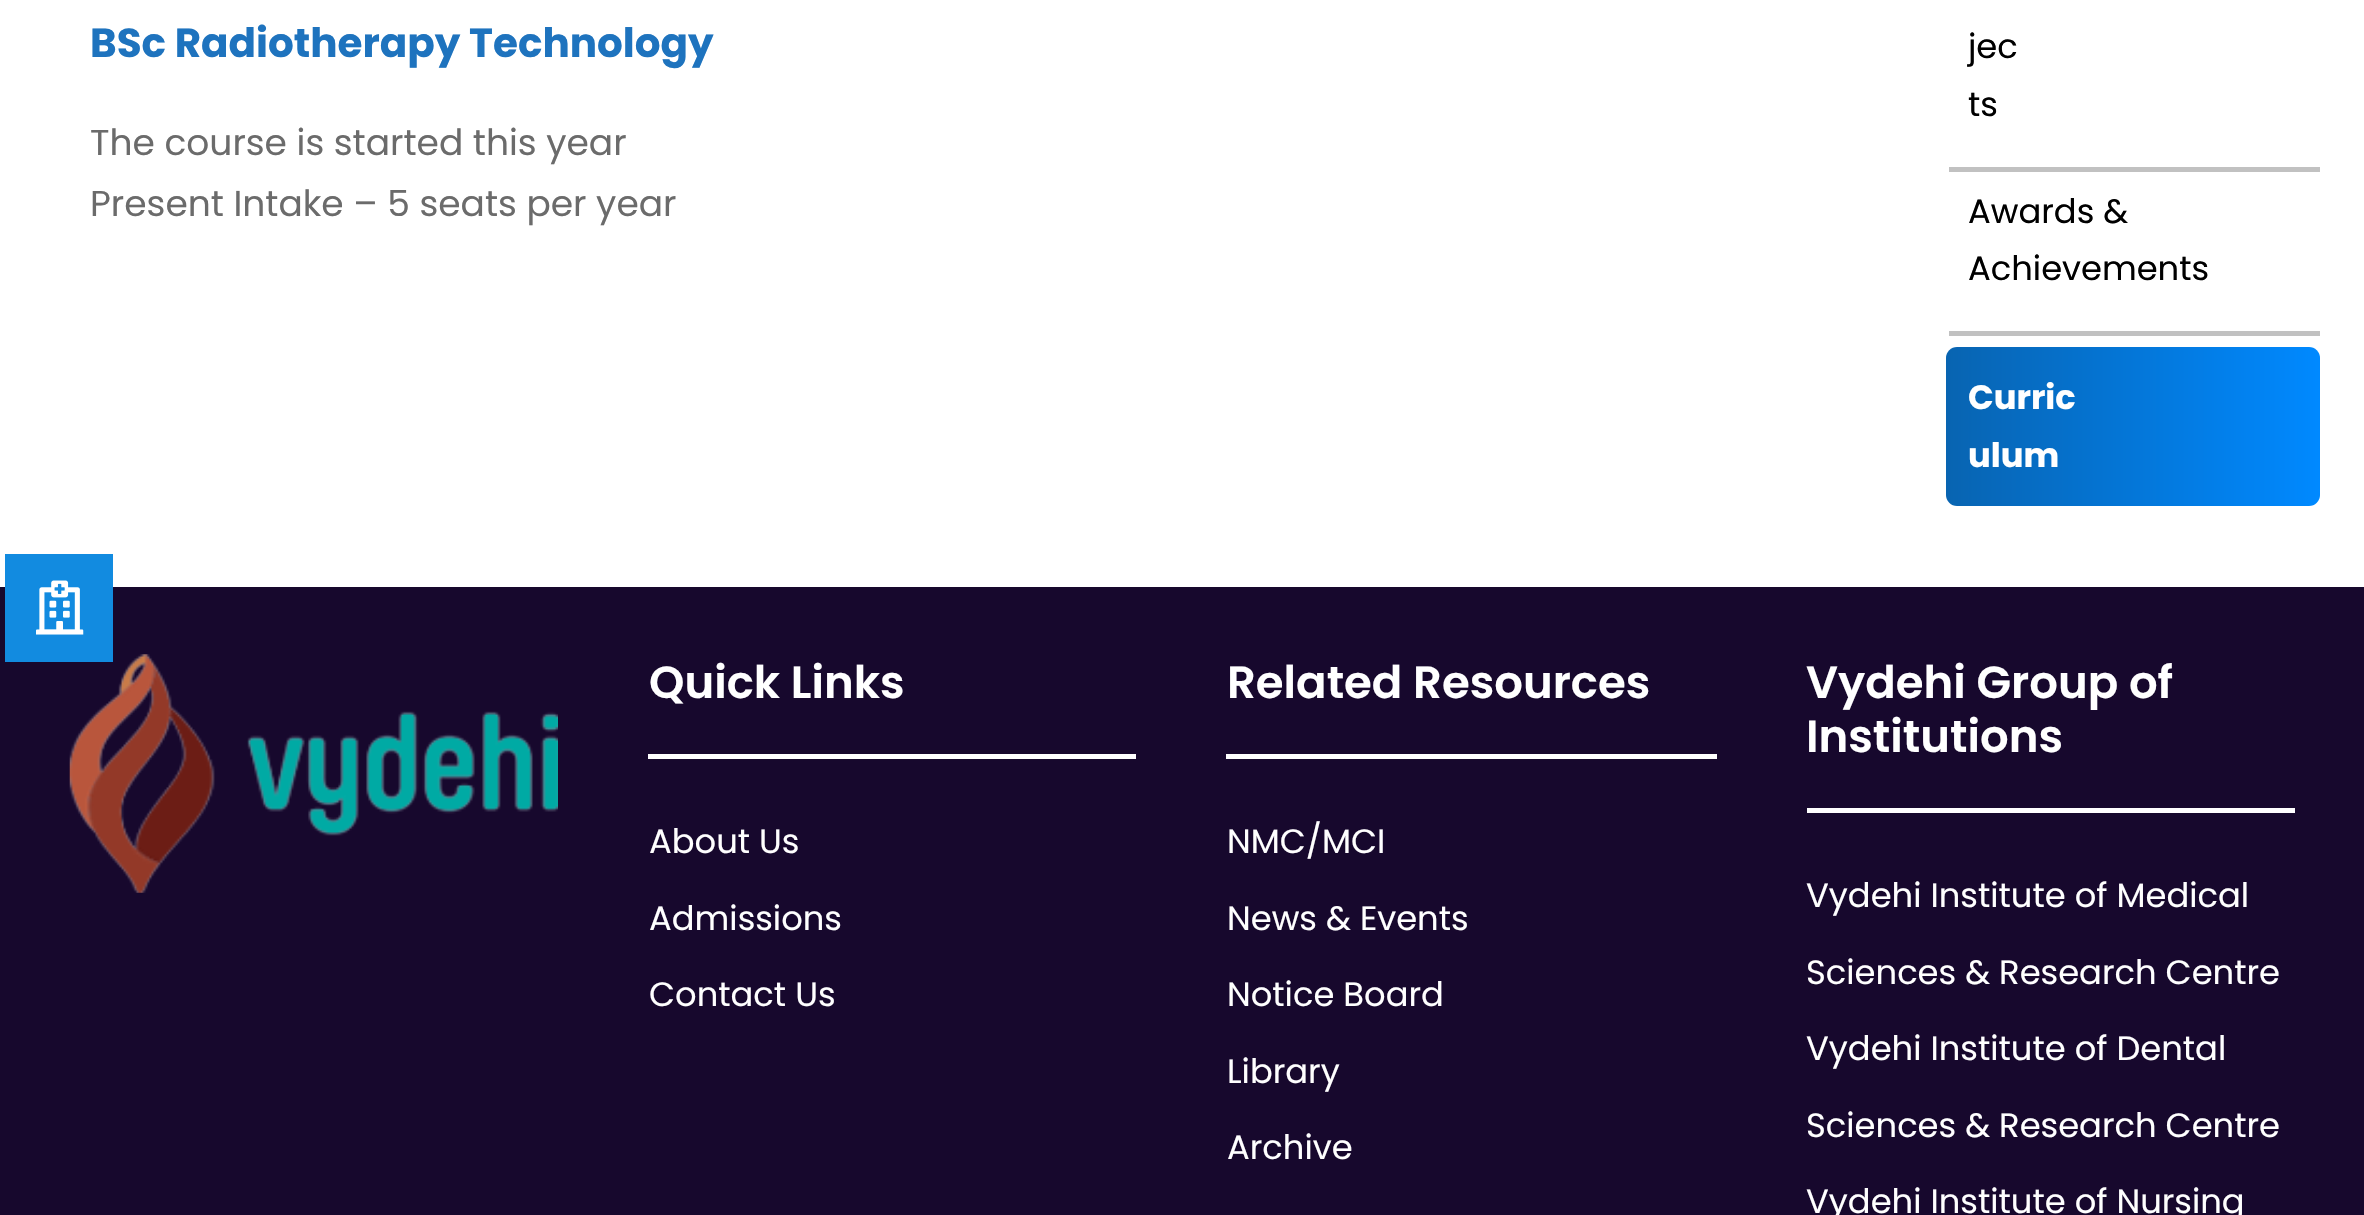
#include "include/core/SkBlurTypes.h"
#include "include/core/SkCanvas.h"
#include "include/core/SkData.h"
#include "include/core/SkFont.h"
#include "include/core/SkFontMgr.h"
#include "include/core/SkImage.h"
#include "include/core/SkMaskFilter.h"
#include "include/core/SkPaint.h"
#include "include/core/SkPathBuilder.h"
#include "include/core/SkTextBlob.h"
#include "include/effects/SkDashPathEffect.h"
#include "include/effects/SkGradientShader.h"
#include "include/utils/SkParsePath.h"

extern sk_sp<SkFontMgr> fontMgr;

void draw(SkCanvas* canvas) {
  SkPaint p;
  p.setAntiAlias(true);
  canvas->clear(SK_ColorWHITE);
  p.setColor(SkColorSetRGB(23, 8, 45));
  canvas->drawRect(SkRect::MakeLTRB(0, 587, 2364, 1215), p);
  canvas->drawImageRect(SkImages::DeferredFromEncodedData(SkData::MakeFromFileName("images/2.png")), SkRect::MakeLTRB(69, 654, 558, 893), SkSamplingOptions());
  p.setColor(SkColorSetRGB(18, 139, 224));
  canvas->drawRect(SkRect::MakeLTRB(5, 554, 113, 662), p);
  canvas->drawImageRect(SkImages::DeferredFromEncodedData(SkData::MakeFromFileName("images/1.png")), SkRect::MakeLTRB(36, 580, 84, 635), SkSamplingOptions());
  p.setColor(SkColorSetRGB(193, 193, 193));
  canvas->drawRect(SkRect::MakeLTRB(1949, 167, 2320, 172), p);
  canvas->drawRect(SkRect::MakeLTRB(1949, 331, 2320, 336), p);
  {
    const SkColor colors[] = {SkColorSetRGB(8, 100, 177), SkColorSetRGB(0, 137, 255)};
    const float stops[] = {0, 1};
    const SkPoint ends[] = {{1946, 426}, {2320, 426}};
    p.setShader(SkGradientShader::MakeLinear(ends, colors, stops, 2, SkTileMode::kClamp));
    p.setAlpha(255);
  }
  canvas->drawRoundRect(SkRect::MakeLTRB(1946, 347, 2320, 506), 11, 11, p);
  p.setShader(nullptr);
  p.setColor(SK_ColorWHITE);
  canvas->drawRect(SkRect::MakeLTRB(648, 754, 1136, 759), p);
  canvas->drawRect(SkRect::MakeLTRB(1226, 754, 1717, 759), p);
  canvas->drawRect(SkRect::MakeLTRB(1807, 808, 2295, 813), p);
  SkFont font1(fontMgr->matchFamilyStyle("Poppins", SkFontStyle::Bold()), 40.5f);
  font1.setSubpixel(true);
  p.setColor(SkColorSetRGB(30, 115, 190));
  canvas->drawString("BSc Radiotherapy Technology", 90, 57, font1, p);
  SkFont font2(fontMgr->matchFamilyStyle("Poppins", SkFontStyle::Normal()), 36);
  font2.setSubpixel(true);
  p.setColor(SkColorSetRGB(107, 107, 107));
  canvas->drawString("The course is started this year", 90, 155, font2, p);
  canvas->drawString("Present Intake – 5 seats per year", 90, 216, font2, p);
  SkFont font3(fontMgr->matchFamilyStyle("Poppins", SkFontStyle::Normal()), 33.75f);
  font3.setSubpixel(true);
  p.setColor(SK_ColorBLACK);
  canvas->drawString("jec", 1968, 58, font3, p);
  canvas->drawString("ts", 1968, 116, font3, p);
  canvas->drawString("Awards &", 1968, 223, font3, p);
  canvas->drawString("Achievements", 1968, 280, font3, p);
  SkFont font4(fontMgr->matchFamilyStyle("Poppins", SkFontStyle::Bold()), 33.75f);
  font4.setSubpixel(true);
  p.setColor(SK_ColorWHITE);
  canvas->drawString("Curric", 1968, 409, font4, p);
  canvas->drawString("ulum", 1968, 467, font4, p);
  SkFont font5(fontMgr->matchFamilyStyle("Poppins", SkFontStyle(600, SkFontStyle::kNormal_Width, SkFontStyle::kUpright_Slant)), 45);
  font5.setSubpixel(true);
  canvas->drawString("Quick Links", 649, 698, font5, p);
  canvas->drawString("About Us", 649, 853, font3, p);
  canvas->drawString("Admissions", 649, 930, font3, p);
  canvas->drawString("Contact Us", 649, 1006, font3, p);
  canvas->drawString("Related Resources", 1227, 698, font5, p);
  canvas->drawString("NMC/MCI", 1227, 853, font3, p);
  canvas->drawString("News & Events", 1227, 930, font3, p);
  canvas->drawString("Notice Board", 1227, 1006, font3, p);
  canvas->drawString("Library", 1227, 1083, font3, p);
  canvas->drawString("Archive", 1227, 1159, font3, p);
  canvas->drawString("Vydehi Group of", 1806, 698, font5, p);
  canvas->drawString("Institutions", 1806, 752, font5, p);
  canvas->drawString("Vydehi Institute of Medical", 1806, 907, font3, p);
  canvas->drawString("Sciences & Research Centre", 1806, 984, font3, p);
  canvas->drawString("Vydehi Institute of Dental", 1806, 1060, font3, p);
  canvas->drawString("Sciences & Research Centre", 1806, 1137, font3, p);
  canvas->drawString("Vydehi Institute of Nursing", 1806, 1213, font3, p);
}
